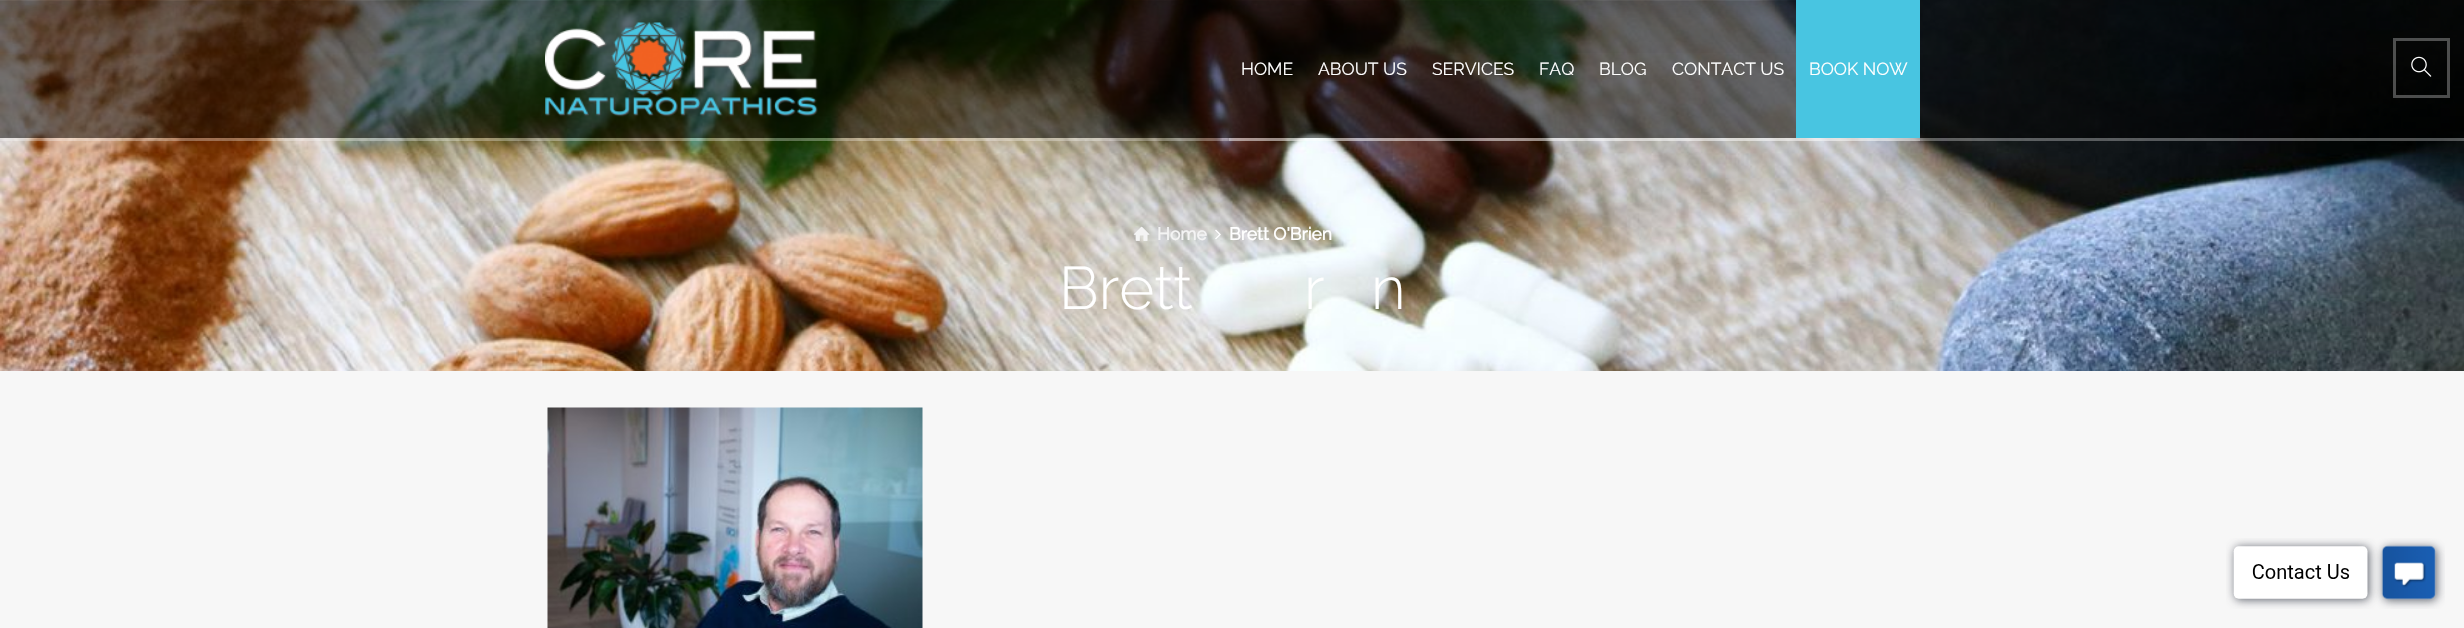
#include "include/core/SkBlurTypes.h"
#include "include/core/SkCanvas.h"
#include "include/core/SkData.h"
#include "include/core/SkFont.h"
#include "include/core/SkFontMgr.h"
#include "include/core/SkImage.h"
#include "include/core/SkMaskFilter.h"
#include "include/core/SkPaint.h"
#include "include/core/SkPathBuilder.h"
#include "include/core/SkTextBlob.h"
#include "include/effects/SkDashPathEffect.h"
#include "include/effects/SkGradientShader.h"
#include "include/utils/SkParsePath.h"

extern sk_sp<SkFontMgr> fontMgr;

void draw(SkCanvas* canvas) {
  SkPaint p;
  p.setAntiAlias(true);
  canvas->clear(SK_ColorWHITE);
  canvas->drawImageRect(SkImages::DeferredFromEncodedData(SkData::MakeFromFileName("images/3.png")), SkRect::MakeLTRB(0, 0, 2464, 371), SkSamplingOptions());
  p.setColor(SkColorSetARGB(130, 0, 0, 0));
  canvas->drawRect(SkRect::MakeLTRB(0, 0, 2464, 138), p);
  {
    const SkColor colors[] = {SkColorSetARGB(0, 0, 0, 0), SkColorSetARGB(26, 0, 0, 0), SkColorSetARGB(8, 0, 0, 0), SkColorSetARGB(0, 0, 0, 0)};
    const float stops[] = {0.01f, 0.01f, 0.14f, 1};
    const SkPoint ends[] = {{1233, 0}, {1233, 138}};
    p.setShader(SkGradientShader::MakeLinear(ends, colors, stops, 4, SkTileMode::kClamp));
    p.setAlpha(255);
  }
  canvas->drawRect(SkRect::MakeLTRB(0, 1, 1862, 53), p);
  canvas->drawImageRect(SkImages::DeferredFromEncodedData(SkData::MakeFromFileName("images/1.png")), SkRect::MakeLTRB(545, 22, 818, 117), SkSamplingOptions());
  p.setShader(nullptr);
  p.setColor(SkColorSetARGB(77, 255, 255, 255));
  canvas->drawRect(SkRect::MakeLTRB(0, 138, 2464, 141), p);
  canvas->drawRect(SkRect::MakeLTRB(1229, 138, 1305, 141), p);
  canvas->drawRect(SkRect::MakeLTRB(1305, 138, 1419, 141), p);
  canvas->drawRect(SkRect::MakeLTRB(1419, 138, 1526, 141), p);
  canvas->drawRect(SkRect::MakeLTRB(1526, 138, 1586, 141), p);
  canvas->drawRect(SkRect::MakeLTRB(1586, 138, 1659, 141), p);
  canvas->drawRect(SkRect::MakeLTRB(1659, 138, 1796, 141), p);
  p.setColor(SkColorSetRGB(72, 197, 225));
  canvas->drawRect(SkRect::MakeLTRB(1796, 0, 1920, 138), p);
  p.setColor(SkColorSetARGB(77, 255, 255, 255));
  canvas->drawRect(SkRect::MakeLTRB(1796, 138, 1920, 141), p);
  p.setStyle(SkPaint::kStroke_Style);
  p.setStrokeWidth(3);
  p.setColor(SkColorSetARGB(74, 255, 255, 255));
  canvas->drawRect(SkRect::MakeLTRB(2394.5f, 39.5f, 2448.5f, 96.5f), p);
  canvas->drawImageRect(SkImages::DeferredFromEncodedData(SkData::MakeFromFileName("images/2.png")), SkRect::MakeLTRB(2411, 56, 2432, 77), SkSamplingOptions());
  canvas->drawImageRect(SkImages::DeferredFromEncodedData(SkData::MakeFromFileName("images/4.png")), SkRect::MakeLTRB(1133, 226, 1150, 241), SkSamplingOptions());
  canvas->drawImageRect(SkImages::DeferredFromEncodedData(SkData::MakeFromFileName("images/5.png")), SkRect::MakeLTRB(1215, 229, 1221, 240), SkSamplingOptions());
  p.setStyle(SkPaint::kFill_Style);
  p.setColor(SkColorSetRGB(247, 247, 247));
  canvas->drawRect(SkRect::MakeLTRB(0, 371, 2464, 628), p);
  canvas->drawImageRect(SkImages::DeferredFromEncodedData(SkData::MakeFromFileName("images/6.png")), SkRect::MakeLTRB(547, 407, 923, 628), SkSamplingOptions());
  canvas->drawImageRect(SkImages::DeferredFromEncodedData(SkData::MakeFromFileName("images/7.png")), SkRect::MakeLTRB(2226, 538, 2445, 609), SkSamplingOptions());
  SkFont font1(fontMgr->matchFamilyStyle("Raleway", SkFontStyle::Normal()), 17.5f);
  font1.setSubpixel(true);
  p.setColor(SK_ColorWHITE);
  canvas->drawString("HOME", 1241, 75, font1, p);
  canvas->drawString("ABOUT US", 1318, 75, font1, p);
  canvas->drawString("SERVICES", 1432, 75, font1, p);
  canvas->drawString("FAQ", 1539, 75, font1, p);
  canvas->drawString("BLOG", 1599, 75, font1, p);
  canvas->drawString("CONTACT US", 1672, 75, font1, p);
  canvas->drawString("BOOK NOW", 1809, 75, font1, p);
  SkFont font2(fontMgr->matchFamilyStyle("Raleway", SkFontStyle::Bold()), 17.5f);
  font2.setSubpixel(true);
  p.setColor(SkColorSetRGB(244, 244, 244));
  canvas->drawString("Home", 1157, 240, font2, p);
  p.setColor(SK_ColorWHITE);
  canvas->drawString("Brett O'Brien", 1229, 240, font2, p);
  SkFont font3(fontMgr->matchFamilyStyle("Raleway", SkFontStyle(300, SkFontStyle::kNormal_Width, SkFontStyle::kUpright_Slant)), 60);
  font3.setSubpixel(true);
  canvas->drawString("Brett", 1059, 309, font3, p);
  canvas->drawString("r", 1304, 309, font3, p);
  canvas->drawString("n", 1371, 309, font3, p);
}
